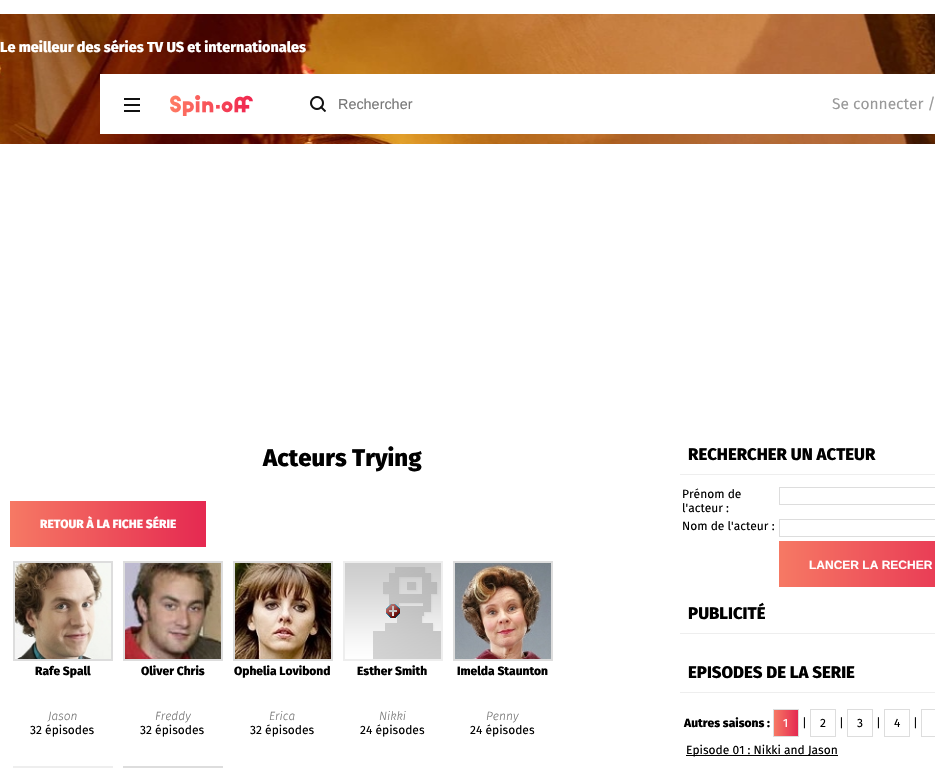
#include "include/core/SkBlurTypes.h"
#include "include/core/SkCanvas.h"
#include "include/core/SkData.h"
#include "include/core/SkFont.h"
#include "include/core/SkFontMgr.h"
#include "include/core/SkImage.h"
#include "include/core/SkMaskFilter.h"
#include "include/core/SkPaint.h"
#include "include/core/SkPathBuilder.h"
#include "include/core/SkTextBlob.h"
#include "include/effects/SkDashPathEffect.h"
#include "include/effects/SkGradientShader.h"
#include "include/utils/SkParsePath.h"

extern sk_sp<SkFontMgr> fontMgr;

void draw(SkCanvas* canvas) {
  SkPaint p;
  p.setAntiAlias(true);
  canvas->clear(SK_ColorWHITE);
  canvas->drawImageRect(SkImages::DeferredFromEncodedData(SkData::MakeFromFileName("images/1.png")), SkRect::MakeLTRB(0, 14, 935, 144), SkSamplingOptions());
  p.setColor(SK_ColorWHITE);
  canvas->drawRect(SkRect::MakeLTRB(100, 74, 935, 134), p);
  p.setColor(SkColorSetRGB(17, 17, 17));
  canvas->drawRect(SkRect::MakeLTRB(124, 98, 140, 100), p);
  canvas->drawRect(SkRect::MakeLTRB(124, 104, 140, 106), p);
  canvas->drawRect(SkRect::MakeLTRB(124, 110, 140, 112), p);
  canvas->drawImageRect(SkImages::DeferredFromEncodedData(SkData::MakeFromFileName("images/2.png")), SkRect::MakeLTRB(170, 95, 253, 116), SkSamplingOptions());
  canvas->drawImageRect(SkImages::DeferredFromEncodedData(SkData::MakeFromFileName("images/3.png")), SkRect::MakeLTRB(310, 96, 326, 112), SkSamplingOptions());
  {
    const SkColor colors[] = {SkColorSetRGB(246, 121, 100), SkColorSetRGB(229, 41, 81)};
    const float stops[] = {0, 1};
    const SkPoint ends[] = {{10, 524}, {206, 524}};
    p.setShader(SkGradientShader::MakeLinear(ends, colors, stops, 2, SkTileMode::kClamp));
    p.setAlpha(255);
  }
  canvas->drawRect(SkRect::MakeLTRB(10, 501, 206, 547), p);
  p.setStyle(SkPaint::kStroke_Style);
  p.setStrokeWidth(2);
  p.setShader(nullptr);
  p.setColor(SkColorSetRGB(221, 221, 221));
  canvas->drawRect(SkRect::MakeLTRB(14, 562, 112, 660), p);
  canvas->drawImageRect(SkImages::DeferredFromEncodedData(SkData::MakeFromFileName("images/4.png")), SkRect::MakeLTRB(15, 563, 111, 659), SkSamplingOptions());
  canvas->drawRect(SkRect::MakeLTRB(124, 562, 222, 660), p);
  canvas->drawImageRect(SkImages::DeferredFromEncodedData(SkData::MakeFromFileName("images/5.png")), SkRect::MakeLTRB(125, 563, 221, 659), SkSamplingOptions());
  canvas->drawRect(SkRect::MakeLTRB(234, 562, 332, 660), p);
  canvas->drawImageRect(SkImages::DeferredFromEncodedData(SkData::MakeFromFileName("images/6.png")), SkRect::MakeLTRB(235, 563, 331, 659), SkSamplingOptions());
  canvas->drawImageRect(SkImages::DeferredFromEncodedData(SkData::MakeFromFileName("images/7.png")), SkRect::MakeLTRB(343, 561, 443, 661), SkSamplingOptions());
  canvas->drawImageRect(SkImages::DeferredFromEncodedData(SkData::MakeFromFileName("images/8.png")), SkRect::MakeLTRB(386, 604, 400, 618), SkSamplingOptions());
  canvas->drawRect(SkRect::MakeLTRB(454, 562, 552, 660), p);
  canvas->drawImageRect(SkImages::DeferredFromEncodedData(SkData::MakeFromFileName("images/9.png")), SkRect::MakeLTRB(455, 563, 551, 659), SkSamplingOptions());
  p.setStyle(SkPaint::kFill_Style);
  p.setColor(SkColorSetRGB(238, 238, 238));
  canvas->drawRect(SkRect::MakeLTRB(13, 766, 113, 768), p);
  p.setStyle(SkPaint::kStroke_Style);
  p.setColor(SkColorSetRGB(221, 221, 221));
  canvas->drawRect(SkRect::MakeLTRB(124, 767, 222, 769), p);
  p.setStyle(SkPaint::kFill_Style);
  p.setColor(SkColorSetRGB(238, 238, 238));
  canvas->drawRect(SkRect::MakeLTRB(680, 474, 935, 475), p);
  p.setStyle(SkPaint::kStroke_Style);
  p.setStrokeWidth(1);
  p.setColor(SkColorSetRGB(221, 221, 221));
  canvas->drawRect(SkRect::MakeLTRB(779.5f, 487.5f, 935.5f, 504.5f), p);
  canvas->drawRect(SkRect::MakeLTRB(779.5f, 519.5f, 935.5f, 536.5f), p);
  p.setStyle(SkPaint::kFill_Style);
  {
    const SkColor colors[] = {SkColorSetRGB(246, 121, 100), SkColorSetRGB(229, 41, 81)};
    const float stops[] = {0, 1};
    const SkPoint ends[] = {{779, 564}, {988, 564}};
    p.setShader(SkGradientShader::MakeLinear(ends, colors, stops, 2, SkTileMode::kClamp));
    p.setAlpha(255);
  }
  canvas->drawRect(SkRect::MakeLTRB(779, 541, 935, 587), p);
  p.setShader(nullptr);
  p.setColor(SkColorSetRGB(238, 238, 238));
  canvas->drawRect(SkRect::MakeLTRB(680, 633, 935, 634), p);
  canvas->drawRect(SkRect::MakeLTRB(680, 692, 935, 693), p);
  {
    const SkColor colors[] = {SkColorSetRGB(246, 121, 100), SkColorSetRGB(229, 41, 81)};
    const float stops[] = {0, 1};
    const SkPoint ends[] = {{774, 723}, {798, 723}};
    p.setShader(SkGradientShader::MakeLinear(ends, colors, stops, 2, SkTileMode::kClamp));
    p.setAlpha(255);
  }
  canvas->drawRect(SkRect::MakeLTRB(774, 710, 798, 736), p);
  p.setStyle(SkPaint::kStroke_Style);
  p.setShader(nullptr);
  p.setColor(SkColorSetRGB(221, 221, 221));
  canvas->drawRect(SkRect::MakeLTRB(773.5f, 709.5f, 798.5f, 736.5f), p);
  canvas->drawRect(SkRect::MakeLTRB(810.5f, 709.5f, 835.5f, 736.5f), p);
  canvas->drawRect(SkRect::MakeLTRB(847.5f, 709.5f, 872.5f, 736.5f), p);
  canvas->drawRect(SkRect::MakeLTRB(884.5f, 709.5f, 909.5f, 736.5f), p);
  canvas->drawRect(SkRect::MakeLTRB(921.5f, 709.5f, 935.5f, 736.5f), p);
  p.setStyle(SkPaint::kFill_Style);
  p.setColor(SK_ColorBLACK);
  canvas->drawRect(SkRect::MakeLTRB(686, 755, 838, 756), p);
  SkFont font1(fontMgr->matchFamilyStyle("Fira Sans", SkFontStyle(800, SkFontStyle::kNormal_Width, SkFontStyle::kUpright_Slant)), 14.4f);
  font1.setSubpixel(true);
  p.setColor(SK_ColorWHITE);
  canvas->drawString("Le meilleur des séries TV US et internationales", 0, 52, font1, p);
  SkFont font2(fontMgr->matchFamilyStyle("Liberation Sans", SkFontStyle::Normal()), 14.4f);
  font2.setSubpixel(true);
  p.setColor(SkColorSetRGB(119, 119, 119));
  canvas->drawString("Rechercher", 338, 109, font2, p);
  SkFont font3(fontMgr->matchFamilyStyle("Fira Sans", SkFontStyle::Normal()), 15.5f);
  font3.setSubpixel(true);
  p.setColor(SkColorSetRGB(153, 153, 153));
  canvas->drawString("Se connecter /", 832, 109, font3, p);
  SkFont font4(fontMgr->matchFamilyStyle("Fira Sans", SkFontStyle(800, SkFontStyle::kNormal_Width, SkFontStyle::kUpright_Slant)), 24);
  font4.setSubpixel(true);
  p.setColor(SK_ColorBLACK);
  canvas->drawString("Acteurs Trying", 263, 466, font4, p);
  SkFont font5(fontMgr->matchFamilyStyle("Fira Sans", SkFontStyle(800, SkFontStyle::kNormal_Width, SkFontStyle::kUpright_Slant)), 12);
  font5.setSubpixel(true);
  p.setColor(SK_ColorWHITE);
  canvas->drawString("RETOUR À LA FICHE SÉRIE", 40, 528, font5, p);
  p.setColor(SK_ColorBLACK);
  canvas->drawString("Rafe Spall", 35, 675, font5, p);
  SkFont font6(fontMgr->matchFamilyStyle("Fira Sans", SkFontStyle(300, SkFontStyle::kNormal_Width, SkFontStyle::kItalic_Slant)), 12);
  font6.setSubpixel(true);
  p.setColor(SkColorSetRGB(119, 119, 119));
  canvas->drawString("Jason", 48, 720, font6, p);
  SkFont font7(fontMgr->matchFamilyStyle("Fira Sans", SkFontStyle::Normal()), 12);
  font7.setSubpixel(true);
  p.setColor(SK_ColorBLACK);
  canvas->drawString("32 épisodes", 30, 734, font7, p);
  canvas->drawString("Oliver Chris", 141, 675, font5, p);
  p.setColor(SkColorSetRGB(119, 119, 119));
  canvas->drawString("Freddy", 155, 720, font6, p);
  p.setColor(SK_ColorBLACK);
  canvas->drawString("32 épisodes", 140, 734, font7, p);
  canvas->drawString("Ophelia Lovibond", 234, 675, font5, p);
  p.setColor(SkColorSetRGB(119, 119, 119));
  canvas->drawString("Erica", 269, 720, font6, p);
  p.setColor(SK_ColorBLACK);
  canvas->drawString("32 épisodes", 250, 734, font7, p);
  canvas->drawString("Esther Smith", 357, 675, font5, p);
  p.setColor(SkColorSetRGB(119, 119, 119));
  canvas->drawString("Nikki", 379, 720, font6, p);
  p.setColor(SK_ColorBLACK);
  canvas->drawString("24 épisodes", 360, 734, font7, p);
  canvas->drawString("Imelda Staunton", 457, 675, font5, p);
  p.setColor(SkColorSetRGB(119, 119, 119));
  canvas->drawString("Penny", 486, 720, font6, p);
  p.setColor(SK_ColorBLACK);
  canvas->drawString("24 épisodes", 470, 734, font7, p);
  SkFont font8(fontMgr->matchFamilyStyle("Fira Sans", SkFontStyle(800, SkFontStyle::kNormal_Width, SkFontStyle::kUpright_Slant)), 16.75f);
  font8.setSubpixel(true);
  canvas->drawString("RECHERCHER UN ACTEUR", 688, 460, font8, p);
  canvas->drawString("Prénom de", 682, 498, font7, p);
  canvas->drawString("l'acteur :", 682, 512, font7, p);
  canvas->drawString("Nom de l'acteur :", 682, 530, font7, p);
  SkFont font9(fontMgr->matchFamilyStyle("Liberation Sans", SkFontStyle::Bold()), 12);
  font9.setSubpixel(true);
  p.setColor(SK_ColorWHITE);
  canvas->drawString("LANCER LA RECHER", 809, 569, font9, p);
  p.setColor(SK_ColorBLACK);
  canvas->drawString("PUBLICITÉ", 688, 619, font8, p);
  canvas->drawString("EPISODES DE LA SERIE", 688, 678, font8, p);
  canvas->drawString("Autres saisons :", 684, 727, font5, p);
  p.setColor(SK_ColorWHITE);
  canvas->drawString("1", 783, 727, font7, p);
  p.setColor(SK_ColorBLACK);
  canvas->drawString("|", 802, 727, font7, p);
  canvas->drawString("2", 820, 727, font7, p);
  canvas->drawString("|", 839, 727, font7, p);
  canvas->drawString("3", 857, 727, font7, p);
  canvas->drawString("|", 876, 727, font7, p);
  canvas->drawString("4", 894, 727, font7, p);
  canvas->drawString("|", 913, 727, font7, p);
  canvas->drawString("Episode 01 : Nikki and Jason", 686, 754, font7, p);
}
